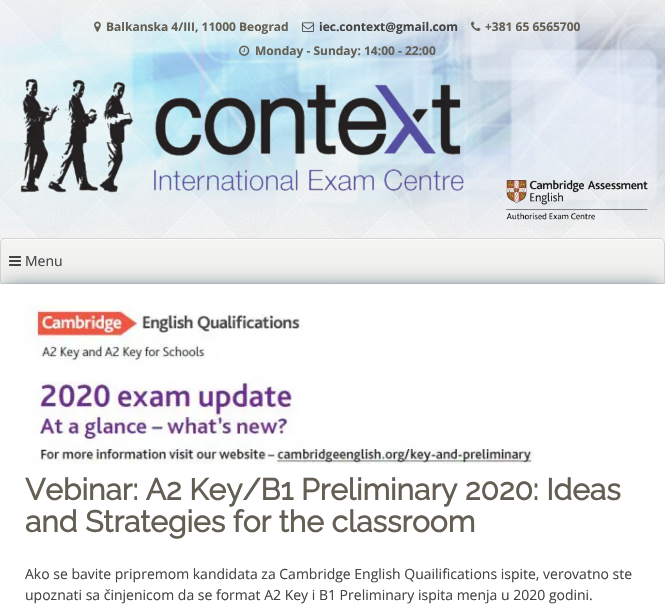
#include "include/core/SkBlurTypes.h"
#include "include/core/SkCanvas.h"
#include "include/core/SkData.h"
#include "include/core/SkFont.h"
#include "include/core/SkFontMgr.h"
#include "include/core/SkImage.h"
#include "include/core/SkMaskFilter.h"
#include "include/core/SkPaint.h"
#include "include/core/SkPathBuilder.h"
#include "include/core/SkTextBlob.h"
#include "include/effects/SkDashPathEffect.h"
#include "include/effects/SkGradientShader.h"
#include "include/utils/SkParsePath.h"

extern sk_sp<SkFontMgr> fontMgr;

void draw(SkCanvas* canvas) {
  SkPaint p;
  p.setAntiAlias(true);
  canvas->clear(SK_ColorWHITE);
  canvas->drawImageRect(SkImages::DeferredFromEncodedData(SkData::MakeFromFileName("images/1.png")), SkRect::MakeLTRB(0, 0, 665, 284), SkSamplingOptions());
  canvas->drawImageRect(SkImages::DeferredFromEncodedData(SkData::MakeFromFileName("images/2.png")), SkRect::MakeLTRB(0, 0, 665, 230), SkSamplingOptions());
  canvas->drawImageRect(SkImages::DeferredFromEncodedData(SkData::MakeFromFileName("images/3.png")), SkRect::MakeLTRB(94, 21, 101, 32), SkSamplingOptions());
  canvas->drawImageRect(SkImages::DeferredFromEncodedData(SkData::MakeFromFileName("images/4.png")), SkRect::MakeLTRB(302, 22, 314, 32), SkSamplingOptions());
  canvas->drawImageRect(SkImages::DeferredFromEncodedData(SkData::MakeFromFileName("images/5.png")), SkRect::MakeLTRB(471, 21, 481, 31), SkSamplingOptions());
  canvas->drawImageRect(SkImages::DeferredFromEncodedData(SkData::MakeFromFileName("images/6.png")), SkRect::MakeLTRB(239, 45, 250, 56), SkSamplingOptions());
  canvas->drawImageRect(SkImages::DeferredFromEncodedData(SkData::MakeFromFileName("images/7.png")), SkRect::MakeLTRB(20, 78, 648, 220), SkSamplingOptions());
  canvas->save();
  canvas->clipPath(SkPathBuilder().moveTo(5, 238).lineTo(660, 238).cubicTo(663, 238, 665, 240, 665, 243).lineTo(665, 282).cubicTo(665, 283, 664, 284, 663, 284).lineTo(2, 284).cubicTo(1, 284, 0, 283, 0, 282).lineTo(0, 243).cubicTo(0, 240, 2, 238, 5, 238).close().detach(), true);
  {
    const SkColor colors[] = {SkColorSetRGB(244, 244, 242), SkColorSetRGB(237, 237, 235)};
    const float stops[] = {0, 1};
    const SkPoint ends[] = {{333, 239}, {333, 283}};
    p.setShader(SkGradientShader::MakeLinear(ends, colors, stops, 2, SkTileMode::kClamp));
    p.setAlpha(255);
  }
  canvas->drawRect(SkRect::MakeLTRB(0, 239, 665, 283), p);
  canvas->restore();
  p.setShader(nullptr);
  p.setColor(SkColorSetRGB(253, 253, 252));
  canvas->drawPath(SkPathBuilder().moveTo(5, 240).lineTo(660, 240).cubicTo(662, 240, 664, 242, 664, 244).cubicTo(664, 241, 663, 239, 660, 239).lineTo(5, 239).lineTo(2, 240).lineTo(1, 241).lineTo(1, 244).cubicTo(1, 242, 3, 240, 5, 240).close().detach(), p);
  p.setStyle(SkPaint::kStroke_Style);
  p.setStrokeWidth(1);
  p.setColor(SkColorSetRGB(212, 212, 212));
  canvas->drawPath(SkPathBuilder().moveTo(5, 238.5f).lineTo(660, 238.5f).cubicTo(662.5f, 238.5f, 664.5f, 240.5f, 664.5f, 243).lineTo(664.5f, 282).cubicTo(664.5f, 283, 664, 283.5f, 663, 283.5f).lineTo(2, 283.5f).cubicTo(1, 283.5f, 0.5f, 283, 0.5f, 282).lineTo(0.5f, 243).cubicTo(0.5f, 240.5f, 2.5f, 238.5f, 5, 238.5f).close().detach(), p);
  p.setStyle(SkPaint::kFill_Style);
  p.setColor(SkColorSetRGB(133, 150, 159));
  p.setMaskFilter(SkMaskFilter::MakeBlur(kNormal_SkBlurStyle, 8));
  canvas->drawRoundRect(SkRect::MakeLTRB(0, 284, 665, 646), 15, 15, p);
  p.setMaskFilter(nullptr);
  canvas->drawImageRect(SkImages::DeferredFromEncodedData(SkData::MakeFromFileName("images/8.png")), SkRect::MakeLTRB(9, 256, 21, 266), SkSamplingOptions());
  p.setColor(SK_ColorWHITE);
  canvas->drawRect(SkRect::MakeLTRB(0, 284, 665, 607), p);
  canvas->drawImageRect(SkImages::DeferredFromEncodedData(SkData::MakeFromFileName("images/9.png")), SkRect::MakeLTRB(25, 305, 535, 464), SkSamplingOptions());
  SkFont font1(fontMgr->matchFamilyStyle("Open Sans", SkFontStyle::Bold()), 12);
  font1.setSubpixel(true);
  p.setColor(SkColorSetRGB(100, 95, 84));
  canvas->drawString("Balkanska 4/III, 11000 Beograd", 106, 31, font1, p);
  p.setColor(SkColorSetRGB(68, 68, 68));
  canvas->drawString("iec.context@gmail.com", 319, 31, font1, p);
  p.setColor(SkColorSetRGB(100, 95, 84));
  canvas->drawString("+381 65 6565700", 485, 31, font1, p);
  canvas->drawString("Monday - Sunday: 14:00 - 22:00", 255, 55, font1, p);
  SkFont font2(fontMgr->matchFamilyStyle("Open Sans", SkFontStyle::Normal()), 14);
  font2.setSubpixel(true);
  p.setColor(SkColorSetRGB(68, 68, 68));
  canvas->drawString("Menu", 25, 266, font2, p);
  SkFont font3(fontMgr->matchFamilyStyle("Raleway", SkFontStyle::Bold()), 30);
  font3.setSubpixel(true);
  p.setColor(SkColorSetRGB(100, 95, 84));
  canvas->drawString("Vebinar: A2 Key/B1 Preliminary 2020: Ideas", 25, 500, font3, p);
  canvas->drawString("and Strategies for the classroom", 25, 532, font3, p);
  p.setColor(SkColorSetRGB(68, 68, 68));
  canvas->drawString("Ako se bavite pripremom kandidata za Cambridge English Quailifications ispite, verovatno ste", 25, 579, font2, p);
  canvas->drawString("upoznati sa činjenicom da se format A2 Key i B1 Preliminary ispita menja u 2020 godini.", 25, 600, font2, p);
}
